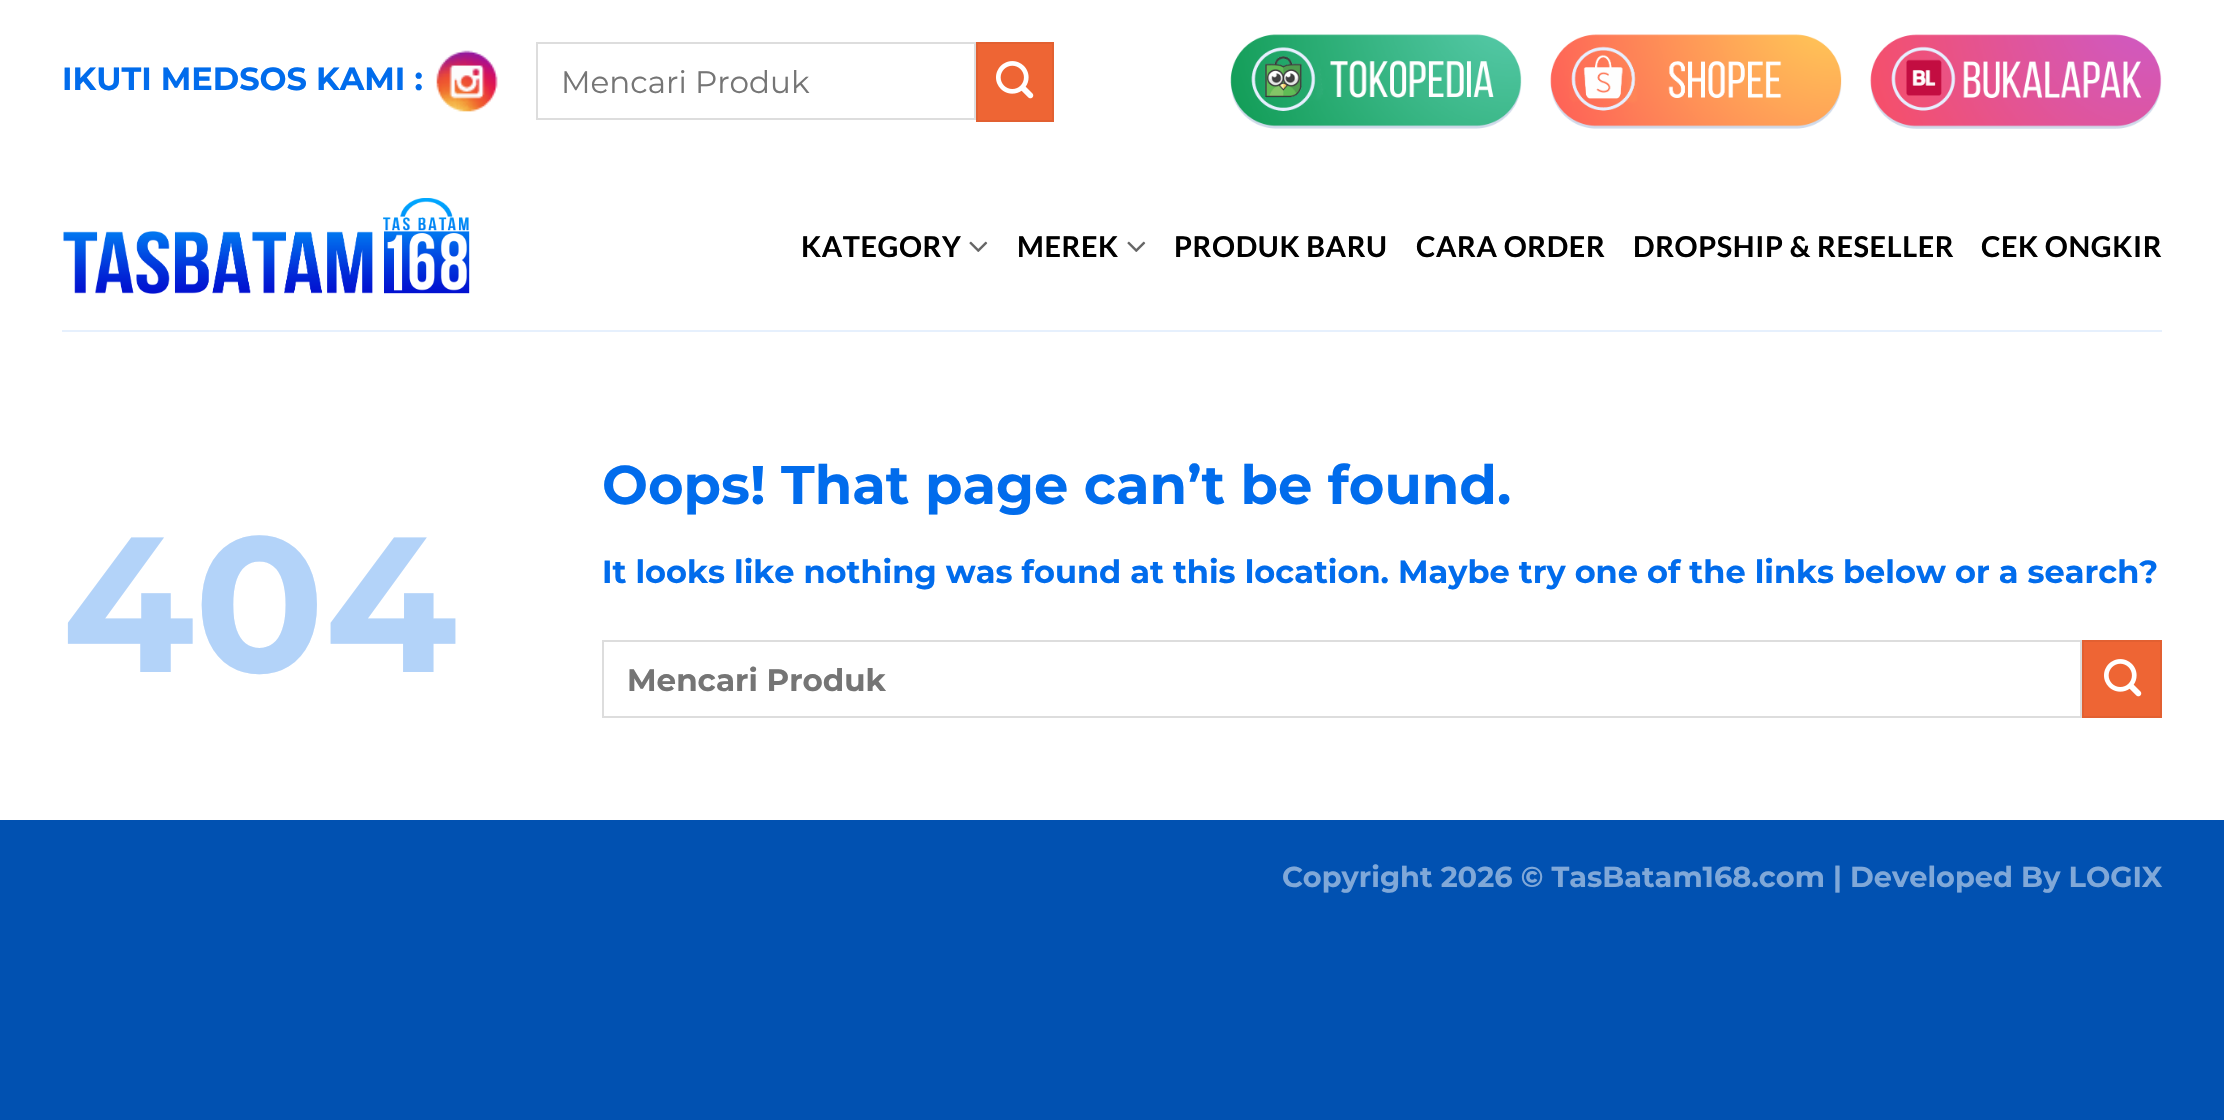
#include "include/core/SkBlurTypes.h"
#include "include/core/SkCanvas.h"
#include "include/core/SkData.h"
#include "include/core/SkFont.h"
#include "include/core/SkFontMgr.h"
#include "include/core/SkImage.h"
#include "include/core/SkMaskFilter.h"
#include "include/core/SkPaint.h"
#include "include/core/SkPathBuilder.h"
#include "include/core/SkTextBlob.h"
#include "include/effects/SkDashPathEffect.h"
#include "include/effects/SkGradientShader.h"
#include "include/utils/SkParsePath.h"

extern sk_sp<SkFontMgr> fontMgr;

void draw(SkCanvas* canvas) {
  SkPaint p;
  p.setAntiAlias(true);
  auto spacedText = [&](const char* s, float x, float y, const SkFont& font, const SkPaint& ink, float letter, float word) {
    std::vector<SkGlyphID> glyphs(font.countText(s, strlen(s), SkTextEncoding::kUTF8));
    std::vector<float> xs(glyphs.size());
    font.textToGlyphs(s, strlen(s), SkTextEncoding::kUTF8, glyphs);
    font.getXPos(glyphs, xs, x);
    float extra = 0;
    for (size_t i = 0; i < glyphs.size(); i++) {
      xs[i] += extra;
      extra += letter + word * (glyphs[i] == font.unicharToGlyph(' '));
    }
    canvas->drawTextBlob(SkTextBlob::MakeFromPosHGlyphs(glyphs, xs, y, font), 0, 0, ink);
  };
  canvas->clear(SkColorSetRGB(1, 81, 177));
  p.setColor(SK_ColorWHITE);
  canvas->drawRect(SkRect::MakeLTRB(0, 0, 2224, 820), p);
  canvas->drawImageRect(SkImages::DeferredFromEncodedData(SkData::MakeFromFileName("images/1.png")), SkRect::MakeLTRB(436, 50, 498, 112), SkSamplingOptions());
  p.setStyle(SkPaint::kStroke_Style);
  p.setStrokeWidth(2);
  p.setColor(SkColorSetRGB(221, 221, 221));
  canvas->drawRect(SkRect::MakeLTRB(537, 43, 975, 119), p);
  p.setStyle(SkPaint::kFill_Style);
  p.setColor(SkColorSetRGB(238, 101, 52));
  canvas->drawRect(SkRect::MakeLTRB(977, 43, 1053, 121), p);
  p.setStyle(SkPaint::kStroke_Style);
  p.setColor(SkColorSetRGB(226, 96, 49));
  canvas->drawRect(SkRect::MakeLTRB(977, 43, 1053, 121), p);
  canvas->drawImageRect(SkImages::DeferredFromEncodedData(SkData::MakeFromFileName("images/2.png")), SkRect::MakeLTRB(996, 61, 1034, 99), SkSamplingOptions());
  canvas->drawImageRect(SkImages::DeferredFromEncodedData(SkData::MakeFromFileName("images/3.png")), SkRect::MakeLTRB(1230, 34, 1522, 129), SkSamplingOptions());
  canvas->drawImageRect(SkImages::DeferredFromEncodedData(SkData::MakeFromFileName("images/4.png")), SkRect::MakeLTRB(1550, 34, 1842, 129), SkSamplingOptions());
  canvas->drawImageRect(SkImages::DeferredFromEncodedData(SkData::MakeFromFileName("images/5.png")), SkRect::MakeLTRB(1870, 34, 2162, 129), SkSamplingOptions());
  canvas->drawImageRect(SkImages::DeferredFromEncodedData(SkData::MakeFromFileName("images/6.png")), SkRect::MakeLTRB(63, 198, 470, 294), SkSamplingOptions());
  canvas->drawImageRect(SkImages::DeferredFromEncodedData(SkData::MakeFromFileName("images/7.png")), SkRect::MakeLTRB(969, 241, 988, 252), SkSamplingOptions());
  canvas->drawImageRect(SkImages::DeferredFromEncodedData(SkData::MakeFromFileName("images/7.png")), SkRect::MakeLTRB(1127, 241, 1146, 252), SkSamplingOptions());
  p.setStyle(SkPaint::kFill_Style);
  p.setColor(SkColorSetRGB(230, 240, 253));
  canvas->drawRect(SkRect::MakeLTRB(62, 330, 2162, 332), p);
  p.setStyle(SkPaint::kStroke_Style);
  p.setColor(SkColorSetRGB(221, 221, 221));
  canvas->drawRect(SkRect::MakeLTRB(603, 641, 2081, 717), p);
  p.setStyle(SkPaint::kFill_Style);
  p.setColor(SkColorSetRGB(238, 101, 52));
  canvas->drawRect(SkRect::MakeLTRB(2083, 641, 2161, 717), p);
  p.setStyle(SkPaint::kStroke_Style);
  p.setColor(SkColorSetRGB(226, 96, 49));
  canvas->drawRect(SkRect::MakeLTRB(2083, 641, 2161, 717), p);
  canvas->drawImageRect(SkImages::DeferredFromEncodedData(SkData::MakeFromFileName("images/2.png")), SkRect::MakeLTRB(2104, 659, 2142, 697), SkSamplingOptions());
  SkFont font1(fontMgr->matchFamilyStyle("Montserrat", SkFontStyle::Bold()), 32);
  font1.setSubpixel(true);
  p.setStyle(SkPaint::kFill_Style);
  p.setColor(SkColorSetRGB(1, 108, 236));
  canvas->drawString("IKUTI MEDSOS KAMI :", 62, 90, font1, p);
  SkFont font2(fontMgr->matchFamilyStyle("Montserrat", SkFontStyle::Normal()), 31);
  font2.setSubpixel(true);
  p.setColor(SkColorSetRGB(117, 117, 117));
  canvas->drawString("Mencari Produk", 561, 93, font2, p);
  SkFont font3(fontMgr->matchFamilyStyle("Lato", SkFontStyle::Bold()), 28.8f);
  font3.setSubpixel(true);
  p.setColor(SK_ColorBLACK);
  spacedText("KATEGORY", 801, 257, font3, p, 0.6f, 0);
  spacedText("MEREK", 1017, 257, font3, p, 0.6f, 0);
  spacedText("PRODUK BARU", 1174, 257, font3, p, 0.6f, 0);
  spacedText("CARA ORDER", 1416, 257, font3, p, 0.6f, 0);
  spacedText("DROPSHIP & RESELLER", 1633, 257, font3, p, 0.6f, 0);
  spacedText("CEK ONGKIR", 1981, 257, font3, p, 0.6f, 0);
  SkFont font4(fontMgr->matchFamilyStyle("Montserrat", SkFontStyle::Bold()), 192);
  font4.setSubpixel(true);
  p.setColor(SkColorSetRGB(179, 211, 249));
  canvas->drawString("404", 62, 672, font4, p);
  SkFont font5(fontMgr->matchFamilyStyle("Montserrat", SkFontStyle::Bold()), 54.4f);
  font5.setSubpixel(true);
  p.setColor(SkColorSetRGB(1, 108, 236));
  canvas->drawString("Oops! That page can’t be found.", 602, 504, font5, p);
  canvas->drawString("It looks like nothing was found at this location. Maybe try one of the links below or a search?", 602, 583, font1, p);
  SkFont font6(fontMgr->matchFamilyStyle("Montserrat", SkFontStyle::Bold()), 31);
  font6.setSubpixel(true);
  p.setColor(SkColorSetRGB(117, 117, 117));
  canvas->drawString("Mencari Produk", 627, 691, font6, p);
  SkFont font7(fontMgr->matchFamilyStyle("Montserrat", SkFontStyle::Bold()), 28.8f);
  font7.setSubpixel(true);
  p.setColor(SkColorSetRGB(128, 168, 216));
  canvas->drawString("Copyright 2026 © TasBatam168.com | Developed By LOGIX", 1282, 887, font7, p);
}
